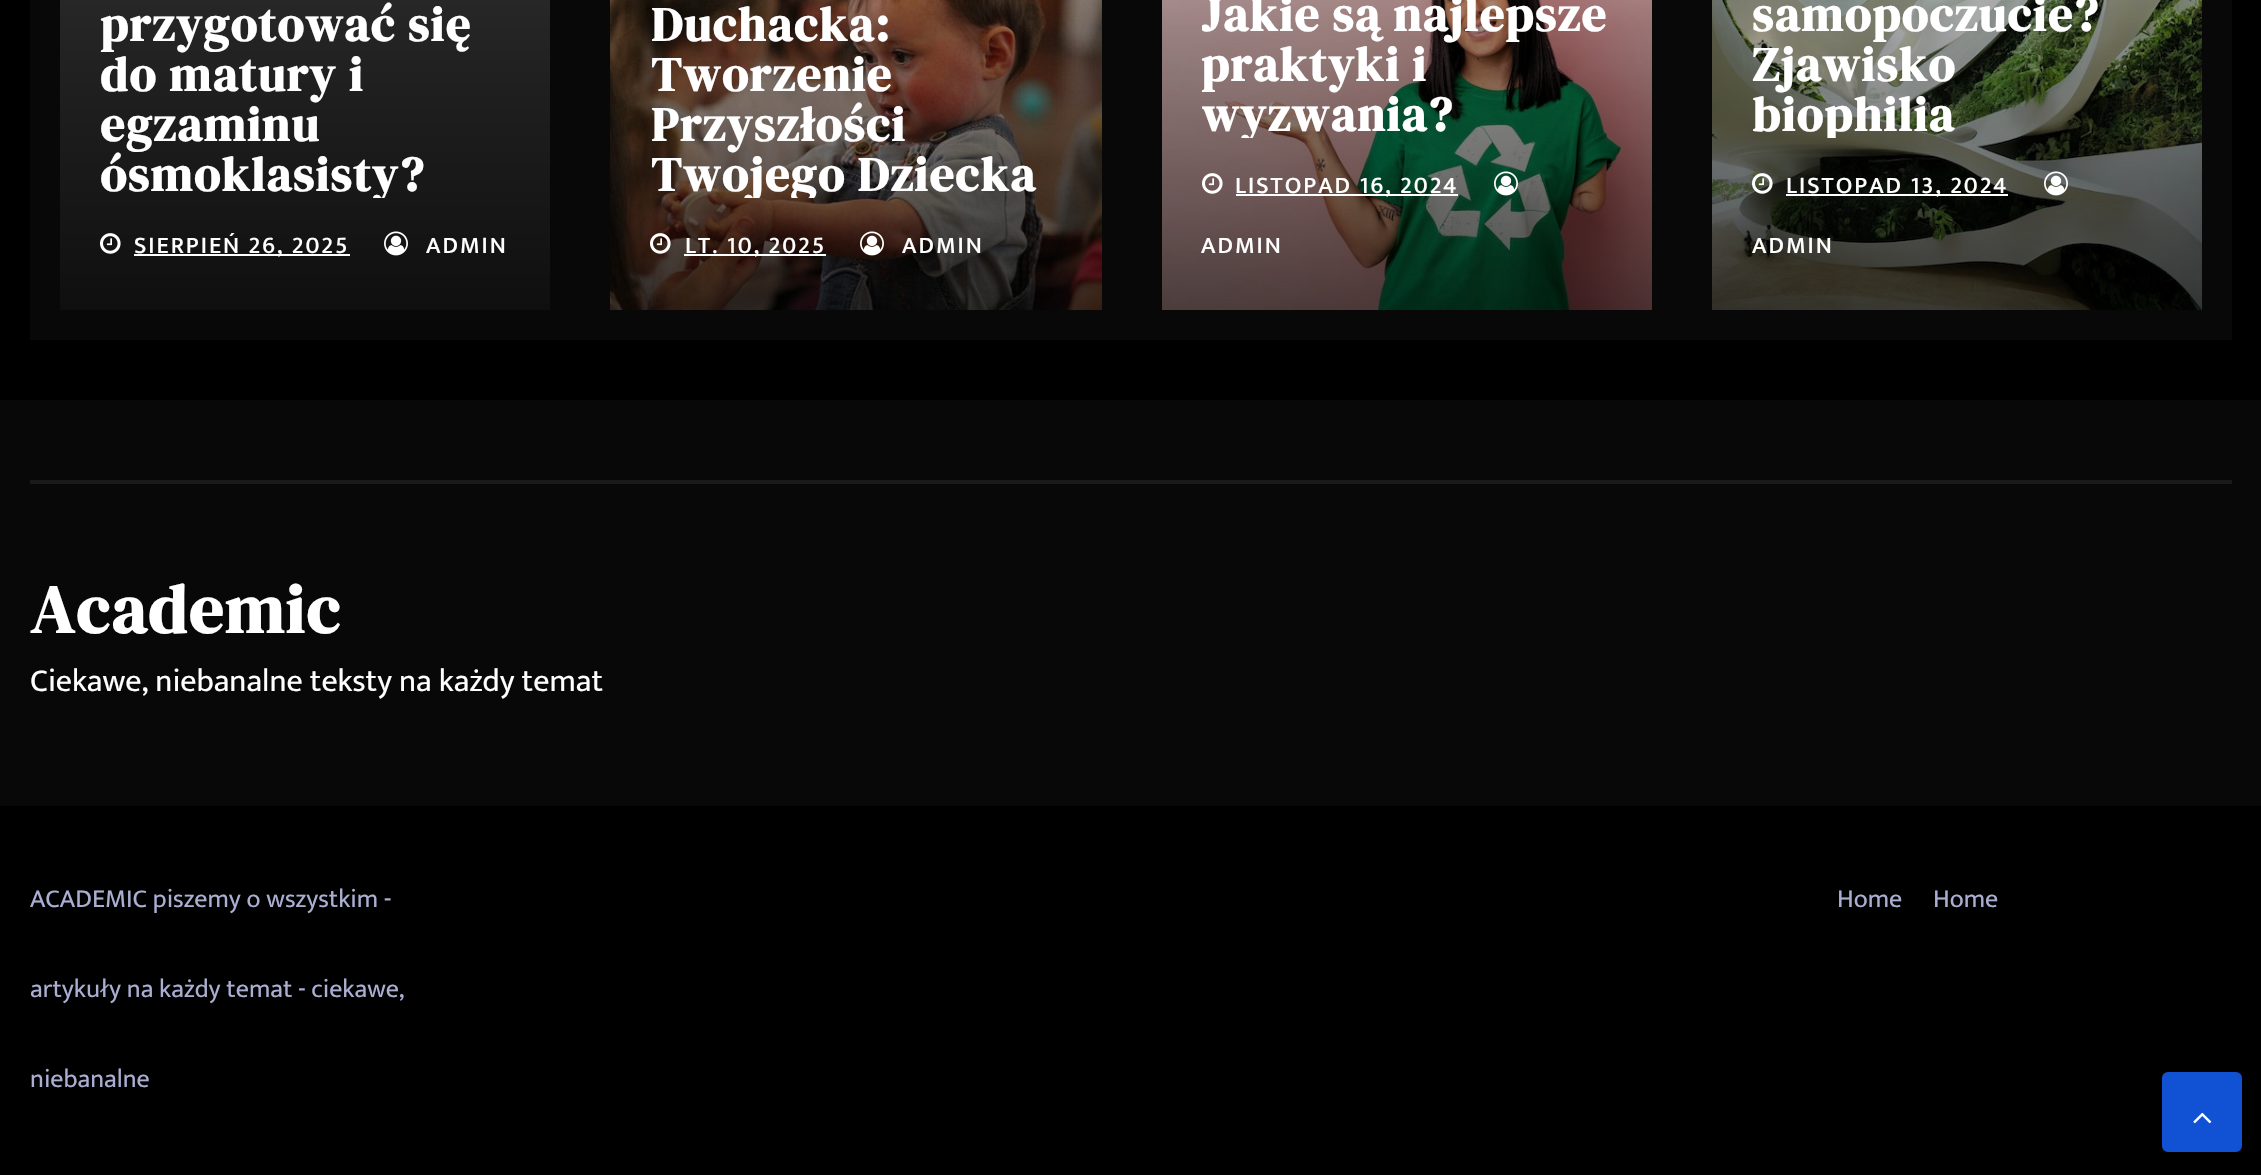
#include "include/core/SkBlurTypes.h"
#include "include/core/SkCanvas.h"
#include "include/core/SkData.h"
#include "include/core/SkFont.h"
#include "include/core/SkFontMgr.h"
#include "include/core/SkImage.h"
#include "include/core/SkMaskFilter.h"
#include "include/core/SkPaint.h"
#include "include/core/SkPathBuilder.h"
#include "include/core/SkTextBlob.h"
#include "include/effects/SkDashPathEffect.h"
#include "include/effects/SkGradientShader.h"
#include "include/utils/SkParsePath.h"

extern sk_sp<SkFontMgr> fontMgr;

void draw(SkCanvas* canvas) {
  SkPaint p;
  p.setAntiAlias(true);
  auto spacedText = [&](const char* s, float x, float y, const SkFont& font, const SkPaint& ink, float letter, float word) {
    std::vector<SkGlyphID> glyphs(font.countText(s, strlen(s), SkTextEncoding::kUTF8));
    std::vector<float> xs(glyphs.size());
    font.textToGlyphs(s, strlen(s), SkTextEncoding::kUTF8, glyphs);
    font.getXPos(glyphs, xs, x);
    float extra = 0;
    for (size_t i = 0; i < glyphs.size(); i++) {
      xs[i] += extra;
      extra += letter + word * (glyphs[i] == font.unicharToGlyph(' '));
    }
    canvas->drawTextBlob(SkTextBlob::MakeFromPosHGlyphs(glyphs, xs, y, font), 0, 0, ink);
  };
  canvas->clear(SK_ColorBLACK);
  p.setColor(SkColorSetRGB(8, 8, 8));
  canvas->drawRect(SkRect::MakeLTRB(30, 0, 2232, 340), p);
  {
    const SkColor colors[] = {SkColorSetRGB(51, 51, 51), SkColorSetRGB(31, 31, 31), SkColorSetRGB(15, 15, 15)};
    const float stops[] = {0, 0.5f, 1};
    const SkPoint ends[] = {{305, -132}, {305, 310}};
    p.setShader(SkGradientShader::MakeLinear(ends, colors, stops, 3, SkTileMode::kClamp));
    p.setAlpha(255);
  }
  canvas->drawRect(SkRect::MakeLTRB(60, 0, 550, 310), p);
  canvas->drawImageRect(SkImages::DeferredFromEncodedData(SkData::MakeFromFileName("images/1.png")), SkRect::MakeLTRB(100, 233, 121, 254), SkSamplingOptions());
  p.setShader(nullptr);
  p.setColor(SK_ColorWHITE);
  canvas->drawRect(SkRect::MakeLTRB(134, 254, 350, 256), p);
  canvas->drawImageRect(SkImages::DeferredFromEncodedData(SkData::MakeFromFileName("images/2.png")), SkRect::MakeLTRB(384, 231, 408, 256), SkSamplingOptions());
  canvas->drawImageRect(SkImages::DeferredFromEncodedData(SkData::MakeFromFileName("images/3.png")), SkRect::MakeLTRB(610, 0, 1102, 310), SkSamplingOptions());
  canvas->drawImageRect(SkImages::DeferredFromEncodedData(SkData::MakeFromFileName("images/4.png")), SkRect::MakeLTRB(650, 233, 671, 254), SkSamplingOptions());
  canvas->drawRect(SkRect::MakeLTRB(684, 254, 826, 256), p);
  canvas->drawImageRect(SkImages::DeferredFromEncodedData(SkData::MakeFromFileName("images/5.png")), SkRect::MakeLTRB(860, 231, 884, 256), SkSamplingOptions());
  canvas->drawImageRect(SkImages::DeferredFromEncodedData(SkData::MakeFromFileName("images/6.png")), SkRect::MakeLTRB(1162, 0, 1652, 310), SkSamplingOptions());
  canvas->drawImageRect(SkImages::DeferredFromEncodedData(SkData::MakeFromFileName("images/7.png")), SkRect::MakeLTRB(1202, 173, 1223, 194), SkSamplingOptions());
  canvas->drawRect(SkRect::MakeLTRB(1236, 194, 1458, 196), p);
  canvas->drawImageRect(SkImages::DeferredFromEncodedData(SkData::MakeFromFileName("images/8.png")), SkRect::MakeLTRB(1494, 171, 1518, 196), SkSamplingOptions());
  canvas->drawImageRect(SkImages::DeferredFromEncodedData(SkData::MakeFromFileName("images/9.png")), SkRect::MakeLTRB(1712, 0, 2202, 310), SkSamplingOptions());
  canvas->drawImageRect(SkImages::DeferredFromEncodedData(SkData::MakeFromFileName("images/10.png")), SkRect::MakeLTRB(1752, 173, 1773, 194), SkSamplingOptions());
  canvas->drawRect(SkRect::MakeLTRB(1786, 194, 2008, 196), p);
  canvas->drawImageRect(SkImages::DeferredFromEncodedData(SkData::MakeFromFileName("images/11.png")), SkRect::MakeLTRB(2044, 171, 2068, 196), SkSamplingOptions());
  p.setColor(SkColorSetRGB(8, 8, 8));
  canvas->drawRect(SkRect::MakeLTRB(0, 400, 2261, 806), p);
  p.setColor(SkColorSetRGB(26, 26, 26));
  canvas->drawRect(SkRect::MakeLTRB(30, 480, 2232, 484), p);
  p.setColor(SkColorSetRGB(17, 81, 211));
  canvas->drawRoundRect(SkRect::MakeLTRB(2164, 1074, 2240, 1150), 4, 4, p);
  p.setStyle(SkPaint::kStroke_Style);
  p.setStrokeWidth(4);
  canvas->drawRoundRect(SkRect::MakeLTRB(2164, 1074, 2240, 1150), 4, 4, p);
  canvas->drawImageRect(SkImages::DeferredFromEncodedData(SkData::MakeFromFileName("images/12.png")), SkRect::MakeLTRB(2193, 1112, 2212, 1124), SkSamplingOptions());
  SkFont font1(fontMgr->matchFamilyStyle("DM Serif Display", SkFontStyle::Bold()), 48);
  font1.setSubpixel(true);
  p.setStyle(SkPaint::kFill_Style);
  p.setColor(SK_ColorWHITE);
  spacedText("przygotować się", 100, 41, font1, p, 1.6f, 0);
  spacedText("do matury i", 100, 91, font1, p, 1.6f, 0);
  spacedText("egzaminu", 100, 141, font1, p, 1.6f, 0);
  canvas->save();
  canvas->clipRect(SkRect::MakeLTRB(100, 0, 510, 198));
  spacedText("ósmoklasisty?", 100, 191, font1, p, 1.6f, 0);
  canvas->restore();
  SkFont font2(fontMgr->matchFamilyStyle("Mukta Vaani", SkFontStyle(500, SkFontStyle::kNormal_Width, SkFontStyle::kUpright_Slant)), 24);
  font2.setSubpixel(true);
  spacedText("SIERPIEŃ 26, 2025", 134, 253, font2, p, 2, 0);
  spacedText("ADMIN", 426, 253, font2, p, 2, 0);
  spacedText("Duchacka:", 651, 41, font1, p, 1.6f, 0);
  spacedText("Tworzenie", 651, 91, font1, p, 1.6f, 0);
  spacedText("Przyszłości", 651, 141, font1, p, 1.6f, 0);
  canvas->save();
  canvas->clipRect(SkRect::MakeLTRB(650, 0, 1062, 198));
  spacedText("Twojego Dziecka", 651, 191, font1, p, 1.6f, 0);
  canvas->restore();
  spacedText("LT. 10, 2025", 685, 253, font2, p, 2, 0);
  spacedText("ADMIN", 902, 253, font2, p, 2, 0);
  canvas->save();
  canvas->clipRect(SkRect::MakeLTRB(1202, 0, 1612, 138));
  spacedText("Jakie są najlepsze", 1201, 31, font1, p, 1.6f, 0);
  canvas->restore();
  spacedText("praktyki i", 1201, 81, font1, p, 1.6f, 0);
  canvas->save();
  canvas->clipRect(SkRect::MakeLTRB(1202, 0, 1612, 138));
  spacedText("wyzwania?", 1201, 131, font1, p, 1.6f, 0);
  canvas->restore();
  spacedText("LISTOPAD 16, 2024", 1235, 193, font2, p, 2, 0);
  spacedText("ADMIN", 1201, 253, font2, p, 2, 0);
  spacedText("samopoczucie?", 1752, 31, font1, p, 1.6f, 0);
  spacedText("Zjawisko", 1752, 81, font1, p, 1.6f, 0);
  canvas->save();
  canvas->clipRect(SkRect::MakeLTRB(1752, 0, 2162, 138));
  spacedText("biophilia", 1752, 131, font1, p, 1.6f, 0);
  canvas->restore();
  spacedText("LISTOPAD 13, 2024", 1786, 193, font2, p, 2, 0);
  spacedText("ADMIN", 1752, 253, font2, p, 2, 0);
  SkFont font3(fontMgr->matchFamilyStyle("DM Serif Display", SkFontStyle::Bold()), 68);
  font3.setSubpixel(true);
  spacedText("Academic", 30, 633, font3, p, 1.6f, 0);
  SkFont font4(fontMgr->matchFamilyStyle("Mukta Vaani", SkFontStyle::Normal()), 32);
  font4.setSubpixel(true);
  canvas->drawString("Ciekawe, niebanalne teksty na każdy temat", 30, 691, font4, p);
  SkFont font5(fontMgr->matchFamilyStyle("Mukta Vaani", SkFontStyle::Normal()), 26);
  font5.setSubpixel(true);
  p.setColor(SkColorSetRGB(170, 174, 209));
  canvas->drawString("ACADEMIC piszemy o wszystkim -", 30, 907, font5, p);
  canvas->drawString("artykuły na każdy temat - ciekawe,", 30, 997, font5, p);
  canvas->drawString("niebanalne", 30, 1087, font5, p);
  canvas->drawString("Home", 1837, 907, font5, p);
  canvas->drawString("Home", 1933, 907, font5, p);
}
